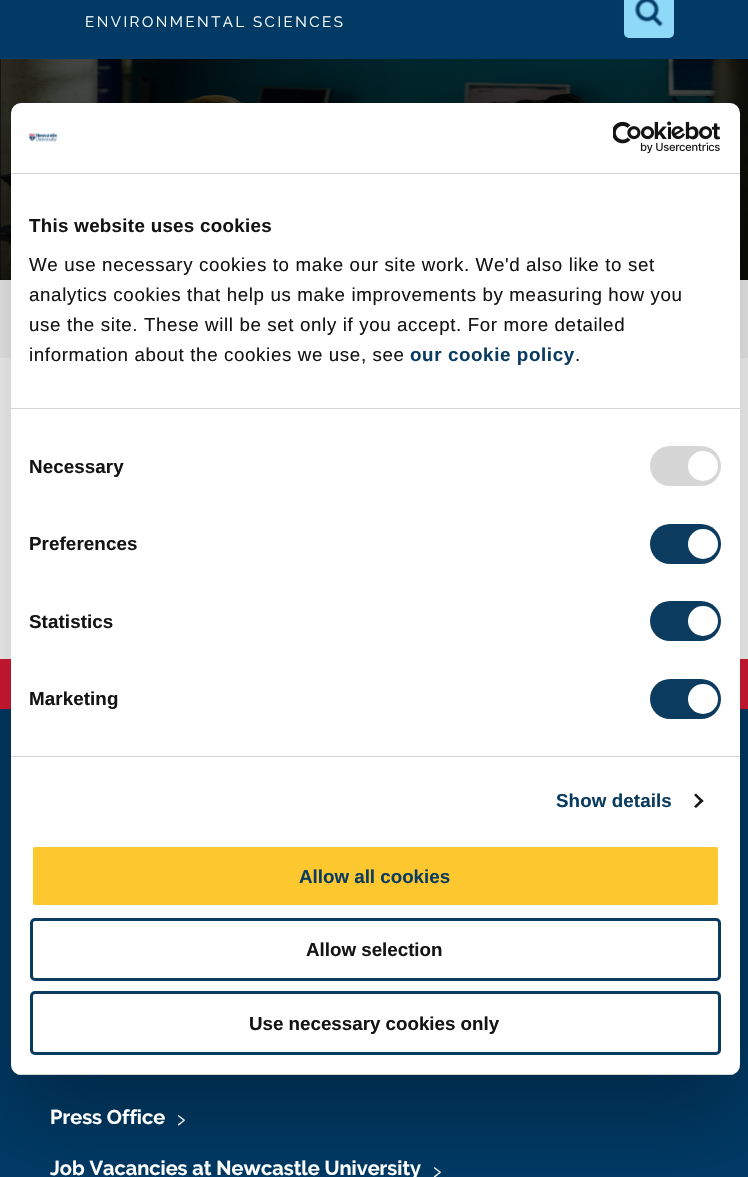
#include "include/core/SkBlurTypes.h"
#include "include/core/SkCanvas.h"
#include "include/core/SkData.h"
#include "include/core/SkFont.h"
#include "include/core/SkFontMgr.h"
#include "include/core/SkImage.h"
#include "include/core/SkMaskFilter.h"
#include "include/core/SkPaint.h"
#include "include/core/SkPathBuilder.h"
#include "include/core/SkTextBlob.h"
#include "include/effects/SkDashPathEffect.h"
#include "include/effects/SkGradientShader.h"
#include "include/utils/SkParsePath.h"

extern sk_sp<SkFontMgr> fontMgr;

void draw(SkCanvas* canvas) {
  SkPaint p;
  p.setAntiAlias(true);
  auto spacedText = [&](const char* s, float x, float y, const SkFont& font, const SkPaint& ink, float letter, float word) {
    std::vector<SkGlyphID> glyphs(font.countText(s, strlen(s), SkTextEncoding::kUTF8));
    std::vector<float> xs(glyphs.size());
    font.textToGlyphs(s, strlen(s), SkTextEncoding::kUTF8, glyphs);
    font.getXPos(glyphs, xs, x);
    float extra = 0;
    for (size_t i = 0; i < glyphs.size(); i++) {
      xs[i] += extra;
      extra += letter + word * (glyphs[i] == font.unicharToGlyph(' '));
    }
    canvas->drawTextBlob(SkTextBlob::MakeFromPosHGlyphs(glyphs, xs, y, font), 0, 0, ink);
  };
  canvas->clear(SK_ColorWHITE);
  p.setColor(SkColorSetRGB(0, 58, 101));
  canvas->drawRect(SkRect::MakeLTRB(0, 0, 748, 59), p);
  p.setColor(SkColorSetRGB(142, 216, 248));
  canvas->drawRoundRect(SkRect::MakeLTRB(624, -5, 674, 38), 5, 5, p);
  canvas->drawImageRect(SkImages::DeferredFromEncodedData(SkData::MakeFromFileName("images/1.png")), SkRect::MakeLTRB(634, 0, 663, 27), SkSamplingOptions());
  p.setColor(SkColorSetRGB(8, 8, 8));
  canvas->drawRect(SkRect::MakeLTRB(0, 59, 1, 280), p);
  canvas->drawImageRect(SkImages::DeferredFromEncodedData(SkData::MakeFromFileName("images/2.png")), SkRect::MakeLTRB(0, 59, 748, 280), SkSamplingOptions());
  p.setColor(SkColorSetRGB(245, 245, 245));
  canvas->drawRect(SkRect::MakeLTRB(0, 280, 748, 358), p);
  p.setColor(SkColorSetRGB(0, 58, 101));
  canvas->drawRect(SkRect::MakeLTRB(0, 709, 748, 1177), p);
  p.setColor(SkColorSetRGB(218, 26, 53));
  canvas->drawRect(SkRect::MakeLTRB(0, 659, 748, 709), p);
  p.setColor(SkColorSetARGB(77, 0, 0, 0));
  p.setMaskFilter(SkMaskFilter::MakeBlur(kNormal_SkBlurStyle, 42.5f));
  canvas->drawRoundRect(SkRect::MakeLTRB(11, 143, 740, 1115), 10, 10, p);
  p.setMaskFilter(nullptr);
  p.setColor(SK_ColorWHITE);
  canvas->drawRoundRect(SkRect::MakeLTRB(11, 103, 740, 1075), 10, 10, p);
  p.setColor(SkColorSetRGB(214, 214, 214));
  canvas->drawRect(SkRect::MakeLTRB(11, 173, 740, 174), p);
  canvas->drawImageRect(SkImages::DeferredFromEncodedData(SkData::MakeFromFileName("images/3.png")), SkRect::MakeLTRB(29, 132, 58, 143), SkSamplingOptions());
  canvas->drawImageRect(SkImages::DeferredFromEncodedData(SkData::MakeFromFileName("images/4.png")), SkRect::MakeLTRB(613, 121, 721, 154), SkSamplingOptions());
  canvas->drawRect(SkRect::MakeLTRB(11, 408, 740, 409), p);
  canvas->drawRect(SkRect::MakeLTRB(11, 756, 740, 757), p);
  canvas->drawRoundRect(SkRect::MakeLTRB(650, 446, 721, 486), 20, 20, p);
  p.setColor(SK_ColorWHITE);
  canvas->drawCircle(703, 466, 15, p);
  p.setColor(SkColorSetRGB(11, 60, 96));
  canvas->drawRoundRect(SkRect::MakeLTRB(650, 524, 721, 564), 20, 20, p);
  p.setColor(SK_ColorWHITE);
  canvas->drawCircle(703, 544, 15, p);
  p.setColor(SkColorSetRGB(11, 60, 96));
  canvas->drawRoundRect(SkRect::MakeLTRB(650, 601, 721, 641), 20, 20, p);
  p.setColor(SK_ColorWHITE);
  canvas->drawCircle(703, 621, 15, p);
  p.setColor(SkColorSetRGB(11, 60, 96));
  canvas->drawRoundRect(SkRect::MakeLTRB(650, 679, 721, 719), 20, 20, p);
  p.setColor(SK_ColorWHITE);
  canvas->drawCircle(703, 699, 15, p);
  p.setColor(SkColorSetRGB(20, 20, 20));
  canvas->drawPath(SkPathBuilder().moveTo(696, 793.5f).lineTo(703.5f, 801).lineTo(701.5f, 802.5f).lineTo(694, 795).close().detach(), p);
  canvas->drawPath(SkPathBuilder().moveTo(701.5f, 799).lineTo(703.5f, 801).lineTo(696, 808).lineTo(694, 806.5f).close().detach(), p);
  canvas->save();
  canvas->clipPath(SkPathBuilder().moveTo(21, 103).lineTo(730, 103).cubicTo(735.5f, 103, 740, 107.5f, 740, 113).lineTo(740, 1065).cubicTo(740, 1070.5f, 735.5f, 1075, 730, 1075).lineTo(21, 1075).cubicTo(15.5f, 1075, 11, 1070.5f, 11, 1065).lineTo(11, 113).cubicTo(11, 107.5f, 15.5f, 103, 21, 103).close().detach(), true);
  p.setColor(SkColorSetRGB(214, 214, 214));
  canvas->drawRect(SkRect::MakeLTRB(11, 1074, 740, 1075), p);
  canvas->restore();
  p.setColor(SkColorSetRGB(253, 200, 47));
  canvas->drawRoundRect(SkRect::MakeLTRB(31.5f, 845.5f, 719.5f, 906.5f), 3.5f, 3.5f, p);
  p.setStyle(SkPaint::kStroke_Style);
  p.setStrokeWidth(3);
  p.setColor(SK_ColorWHITE);
  canvas->drawRoundRect(SkRect::MakeLTRB(31.5f, 845.5f, 719.5f, 906.5f), 3.5f, 3.5f, p);
  p.setColor(SkColorSetRGB(11, 60, 96));
  canvas->drawRoundRect(SkRect::MakeLTRB(31.5f, 919.5f, 719.5f, 979.5f), 3.5f, 3.5f, p);
  canvas->drawRoundRect(SkRect::MakeLTRB(31.5f, 992.5f, 719.5f, 1053.5f), 3.5f, 3.5f, p);
  SkFont font1(fontMgr->matchFamilyStyle("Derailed", SkFontStyle::Normal()), 15);
  font1.setSubpixel(true);
  p.setStyle(SkPaint::kFill_Style);
  p.setColor(SK_ColorWHITE);
  spacedText("ENVIRONMENTAL SCIENCES", 85, 27, font1, p, 2.5f, 0);
  SkFont font2(fontMgr->matchFamilyStyle("Liberation Sans", SkFontStyle::Bold()), 18.75f);
  font2.setSubpixel(true);
  p.setColor(SkColorSetRGB(20, 20, 20));
  spacedText("This website uses cookies", 29, 232, font2, p, 0.3f, 0);
  SkFont font3(fontMgr->matchFamilyStyle("Liberation Sans", SkFontStyle::Normal()), 18.75f);
  font3.setSubpixel(true);
  spacedText("We use necessary cookies to make our site work. We'd also like to set", 29, 271, font3, p, 0.62f, 0);
  spacedText("analytics cookies that help us make improvements by measuring how you", 29, 301, font3, p, 0.62f, 0);
  spacedText("use the site. These will be set only if you accept. For more detailed", 29, 331, font3, p, 0.62f, 0);
  spacedText("information about the cookies we use, see", 29, 361, font3, p, 0.62f, 0);
  p.setColor(SkColorSetRGB(11, 60, 96));
  spacedText("our cookie policy", 410, 361, font2, p, 0.62f, 0);
  p.setColor(SkColorSetRGB(20, 20, 20));
  spacedText(".", 575, 361, font3, p, 0.62f, 0);
  spacedText("Necessary", 29, 473, font2, p, 0.1f, 0);
  spacedText("Preferences", 29, 550, font2, p, 0.1f, 0);
  spacedText("Statistics", 29, 628, font2, p, 0.1f, 0);
  spacedText("Marketing", 29, 705, font2, p, 0.1f, 0);
  p.setColor(SkColorSetRGB(11, 60, 96));
  spacedText("Show details", 556, 807, font2, p, 0.1f, 0);
  canvas->drawString("Allow all cookies", 299, 883, font2, p);
  p.setColor(SkColorSetRGB(20, 20, 20));
  canvas->drawString("Allow selection", 306, 956, font2, p);
  canvas->drawString("Use necessary cookies only", 249, 1030, font2, p);
  SkFont font4(fontMgr->matchFamilyStyle("Derailed", SkFontStyle::Bold()), 20);
  font4.setSubpixel(true);
  p.setColor(SK_ColorWHITE);
  canvas->drawString("Press Office", 50, 1124, font4, p);
  SkFont font5(fontMgr->matchFamilyStyle("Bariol", SkFontStyle::Normal()), 20);
  font5.setSubpixel(true);
  canvas->drawString(">", 178, 1125, font5, p);
  canvas->drawString("Job Vacancies at Newcastle University", 50, 1175, font4, p);
  canvas->drawString(">", 434, 1177, font5, p);
}
